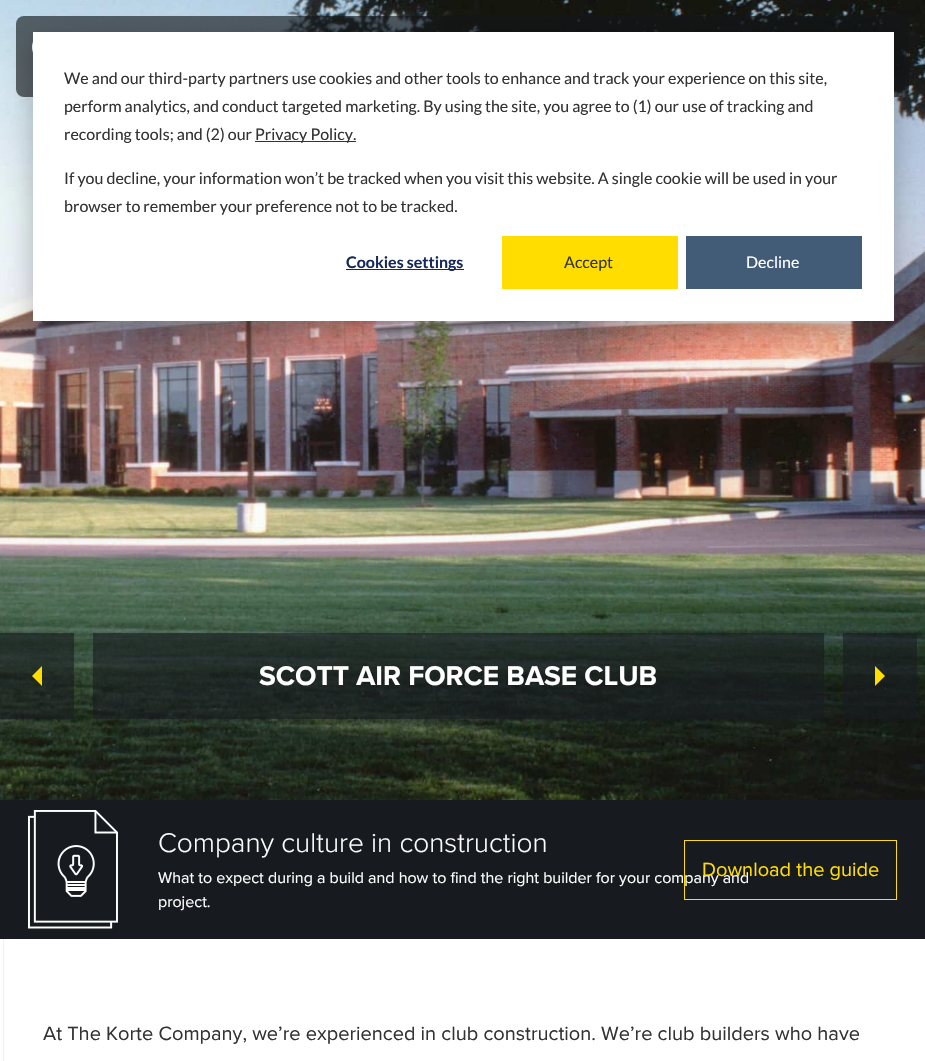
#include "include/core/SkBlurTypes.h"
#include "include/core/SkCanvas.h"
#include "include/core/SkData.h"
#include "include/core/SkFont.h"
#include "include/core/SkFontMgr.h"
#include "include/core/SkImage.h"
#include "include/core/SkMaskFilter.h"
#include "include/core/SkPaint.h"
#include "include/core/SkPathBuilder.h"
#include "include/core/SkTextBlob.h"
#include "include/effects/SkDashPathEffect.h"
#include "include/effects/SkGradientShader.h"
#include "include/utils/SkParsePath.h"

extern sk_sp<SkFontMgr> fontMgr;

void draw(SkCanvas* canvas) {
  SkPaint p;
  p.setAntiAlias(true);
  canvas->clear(SK_ColorWHITE);
  canvas->drawImageRect(SkImages::DeferredFromEncodedData(SkData::MakeFromFileName("images/2.png")), SkRect::MakeLTRB(0, 0, 925, 800), SkSamplingOptions());
  p.setColor(SkColorSetARGB(161, 17, 20, 23));
  canvas->drawRoundRect(SkRect::MakeLTRB(16, 16, 909, 97), 8, 8, p);
  canvas->drawImageRect(SkImages::DeferredFromEncodedData(SkData::MakeFromFileName("images/1.png")), SkRect::MakeLTRB(32, 41, 33, 53), SkSamplingOptions());
  p.setColor(SkColorSetARGB(71, 0, 0, 0));
  p.setMaskFilter(SkMaskFilter::MakeBlur(kNormal_SkBlurStyle, 14));
  canvas->drawRect(SkRect::MakeLTRB(33, 40, 894, 329), p);
  p.setMaskFilter(nullptr);
  p.setColor(SK_ColorWHITE);
  canvas->drawRect(SkRect::MakeLTRB(33, 32, 894, 321), p);
  p.setColor(SkColorSetRGB(51, 51, 51));
  canvas->drawRect(SkRect::MakeLTRB(255, 141, 356, 142), p);
  p.setColor(SkColorSetRGB(21, 41, 90));
  canvas->drawRect(SkRect::MakeLTRB(346, 269, 464, 270), p);
  p.setColor(SkColorSetRGB(255, 221, 0));
  canvas->drawRect(SkRect::MakeLTRB(502, 236, 678, 289), p);
  p.setColor(SkColorSetRGB(66, 91, 118));
  canvas->drawRect(SkRect::MakeLTRB(686, 236, 862, 289), p);
  p.setColor(SkColorSetRGB(23, 26, 31));
  canvas->drawRect(SkRect::MakeLTRB(0, 800, 925, 939), p);
  p.setColor(SkColorSetARGB(153, 23, 26, 31));
  canvas->drawRect(SkRect::MakeLTRB(0, 633, 74, 719), p);
  p.setColor(SkColorSetRGB(255, 221, 0));
  canvas->drawPath(SkPathBuilder().moveTo(42, 666).lineTo(42, 686).lineTo(32, 676).close().detach(), p);
  p.setColor(SkColorSetARGB(153, 23, 26, 31));
  canvas->drawRect(SkRect::MakeLTRB(93, 633, 824, 719), p);
  canvas->drawRect(SkRect::MakeLTRB(843, 633, 917, 719), p);
  p.setColor(SkColorSetRGB(255, 221, 0));
  canvas->drawPath(SkPathBuilder().moveTo(875, 686).lineTo(875, 666).lineTo(885, 676).close().detach(), p);
  canvas->drawImageRect(SkImages::DeferredFromEncodedData(SkData::MakeFromFileName("images/3.png")), SkRect::MakeLTRB(28, 810, 118, 929), SkSamplingOptions());
  p.setColor(SkColorSetRGB(240, 240, 240));
  canvas->drawRect(SkRect::MakeLTRB(3, 939, 4, 1061), p);
  SkFont font1(fontMgr->matchFamilyStyle("Lato", SkFontStyle::Normal()), 16);
  font1.setSubpixel(true);
  p.setColor(SkColorSetRGB(51, 51, 51));
  canvas->drawString("We and our third-party partners use cookies and other tools to enhance and track your experience on this site,", 64, 84, font1, p);
  canvas->drawString("perform analytics, and conduct targeted marketing. By using the site, you agree to (1) our use of tracking and", 64, 112, font1, p);
  canvas->drawString("recording tools; and (2) our", 64, 140, font1, p);
  canvas->drawString("Privacy Policy.", 255, 140, font1, p);
  canvas->drawString("If you decline, your information won’t be tracked when you visit this website. A single cookie will be used in your", 64, 184, font1, p);
  canvas->drawString("browser to remember your preference not to be tracked.", 64, 212, font1, p);
  SkFont font2(fontMgr->matchFamilyStyle("Lato", SkFontStyle::Bold()), 16);
  font2.setSubpixel(true);
  p.setColor(SkColorSetRGB(21, 41, 90));
  canvas->drawString("Cookies settings", 346, 268, font2, p);
  p.setColor(SkColorSetRGB(51, 51, 51));
  canvas->drawString("Accept", 564, 268, font1, p);
  p.setColor(SK_ColorWHITE);
  canvas->drawString("Decline", 746, 268, font1, p);
  SkFont font3(fontMgr->matchFamilyStyle("Proxima Nova", SkFontStyle::Bold()), 28);
  font3.setSubpixel(true);
  canvas->drawString("SCOTT AIR FORCE BASE CLUB", 259, 685, font3, p);
  SkFont font4(fontMgr->matchFamilyStyle("Proxima Nova", SkFontStyle(300, SkFontStyle::kNormal_Width, SkFontStyle::kUpright_Slant)), 28);
  font4.setSubpixel(true);
  canvas->drawString("Company culture in construction", 158, 852, font4, p);
  SkFont font5(fontMgr->matchFamilyStyle("Proxima Nova", SkFontStyle::Normal()), 16);
  font5.setSubpixel(true);
  canvas->drawString("What to expect during a build and how to find the right builder for your company and", 158, 883, font5, p);
  canvas->drawString("project.", 158, 907, font5, p);
  p.setStyle(SkPaint::kStroke_Style);
  p.setStrokeWidth(1);
  p.setColor(SkColorSetRGB(255, 221, 0));
  canvas->drawRect(SkRect::MakeLTRB(684.5f, 840.5f, 896.5f, 899.5f), p);
  SkFont font6(fontMgr->matchFamilyStyle("Proxima Nova", SkFontStyle::Normal()), 20);
  font6.setSubpixel(true);
  p.setStyle(SkPaint::kFill_Style);
  canvas->drawString("Download the guide", 702, 876, font6, p);
  p.setColor(SkColorSetRGB(51, 51, 51));
  canvas->drawString("At The Korte Company, we’re experienced in club construction. We’re club builders who have", 43, 1040, font6, p);
}
